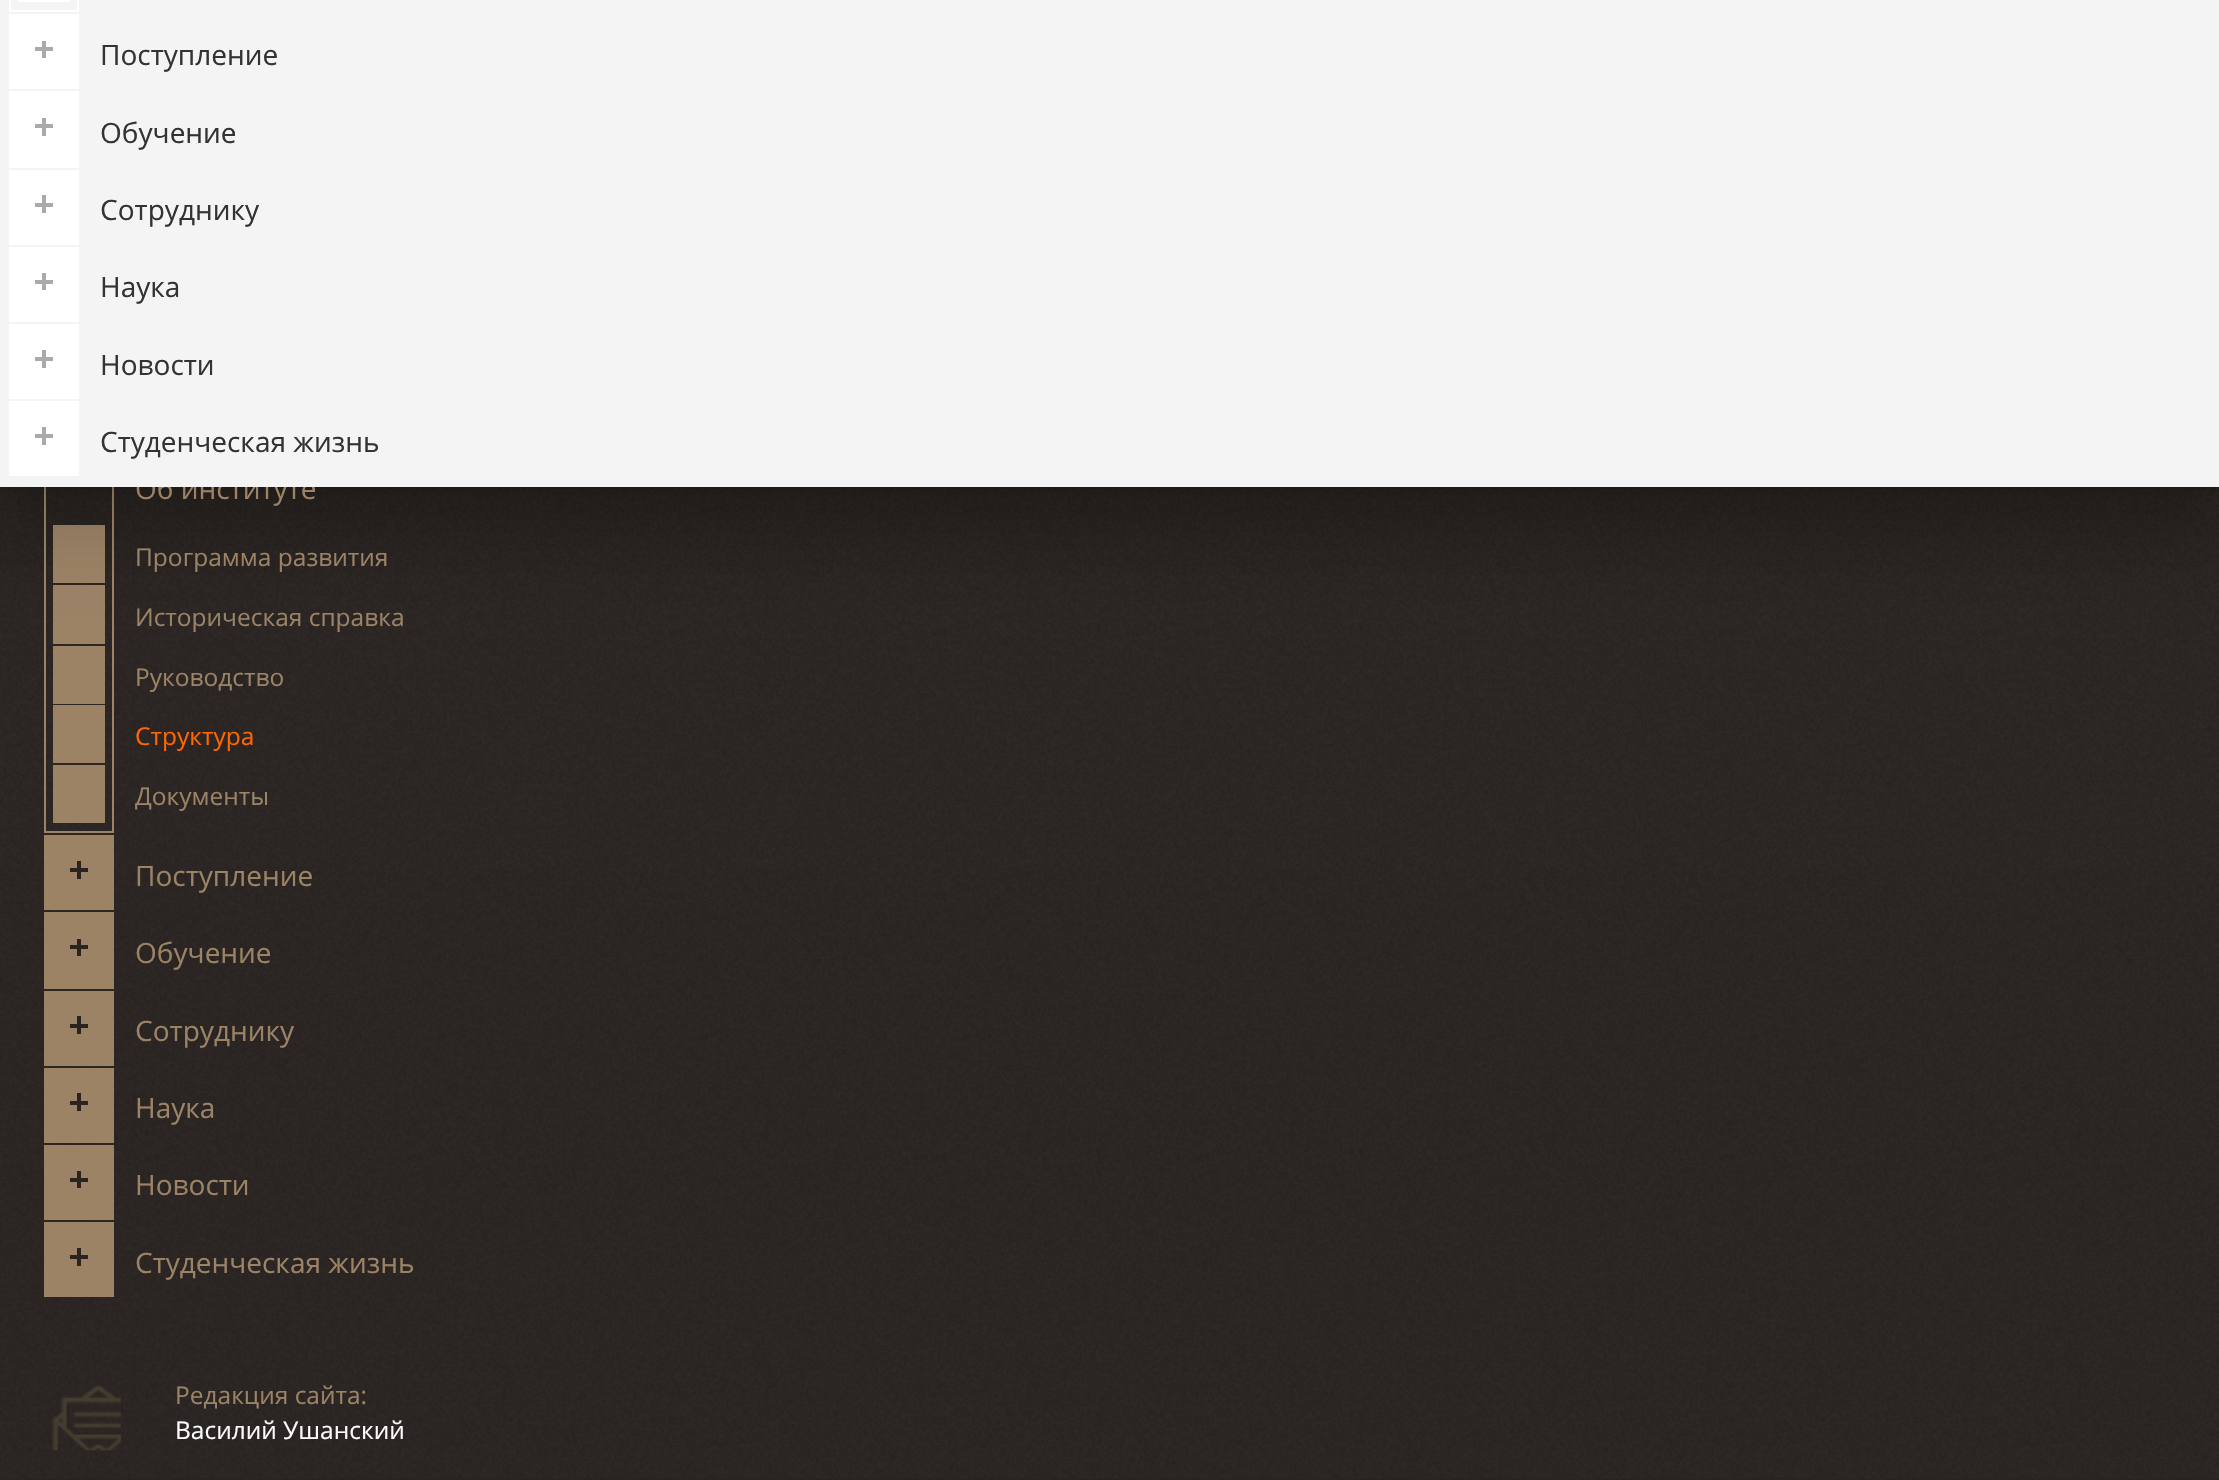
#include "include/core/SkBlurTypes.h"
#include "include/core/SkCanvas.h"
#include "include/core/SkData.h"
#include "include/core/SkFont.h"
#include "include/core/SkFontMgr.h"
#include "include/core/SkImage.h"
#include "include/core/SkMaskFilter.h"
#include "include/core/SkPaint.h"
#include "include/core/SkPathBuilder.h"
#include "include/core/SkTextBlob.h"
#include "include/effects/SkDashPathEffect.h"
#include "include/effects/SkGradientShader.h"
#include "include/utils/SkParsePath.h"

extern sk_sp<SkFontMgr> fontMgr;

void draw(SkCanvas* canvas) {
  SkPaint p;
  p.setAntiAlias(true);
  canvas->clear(SkColorSetRGB(42, 36, 33));
  canvas->drawImageRect(SkImages::DeferredFromEncodedData(SkData::MakeFromFileName("images/1.png")), SkRect::MakeLTRB(0, 487, 2219, 1478), SkSamplingOptions());
  p.setStyle(SkPaint::kStroke_Style);
  p.setStrokeWidth(2);
  p.setColor(SkColorSetRGB(156, 131, 102));
  canvas->drawRect(SkRect::MakeLTRB(45, 449, 113, 832), p);
  p.setStyle(SkPaint::kFill_Style);
  canvas->drawRect(SkRect::MakeLTRB(53, 525, 105, 583), p);
  canvas->drawRect(SkRect::MakeLTRB(53, 585, 105, 644), p);
  p.setColor(SkColorSetARGB(38, 0, 0, 0));
  p.setMaskFilter(SkMaskFilter::MakeBlur(kNormal_SkBlurStyle, 30.5f));
  canvas->drawRect(SkRect::MakeLTRB(0, -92, 2219, 530), p);
  p.setMaskFilter(nullptr);
  p.setColor(SkColorSetARGB(26, 0, 0, 0));
  p.setMaskFilter(SkMaskFilter::MakeBlur(kNormal_SkBlurStyle, 4.5f));
  canvas->drawRect(SkRect::MakeLTRB(0, -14, 2219, 490), p);
  p.setMaskFilter(nullptr);
  p.setColor(SkColorSetRGB(156, 131, 102));
  canvas->drawRect(SkRect::MakeLTRB(53, 646, 105, 704), p);
  canvas->drawRect(SkRect::MakeLTRB(53, 705, 105, 763), p);
  canvas->drawRect(SkRect::MakeLTRB(53, 765, 105, 823), p);
  canvas->drawRect(SkRect::MakeLTRB(44, 835, 114, 910), p);
  p.setColor(SkColorSetRGB(42, 36, 33));
  canvas->drawRect(SkRect::MakeLTRB(70, 868, 88, 872), p);
  canvas->drawRect(SkRect::MakeLTRB(77, 861, 81, 879), p);
  p.setColor(SkColorSetRGB(156, 131, 102));
  canvas->drawRect(SkRect::MakeLTRB(44, 912, 114, 989), p);
  p.setColor(SkColorSetRGB(42, 36, 33));
  canvas->drawRect(SkRect::MakeLTRB(70, 945, 88, 949), p);
  canvas->drawRect(SkRect::MakeLTRB(77, 939, 81, 956), p);
  p.setColor(SkColorSetRGB(156, 131, 102));
  canvas->drawRect(SkRect::MakeLTRB(44, 991, 114, 1066), p);
  p.setColor(SkColorSetRGB(42, 36, 33));
  canvas->drawRect(SkRect::MakeLTRB(70, 1024, 88, 1028), p);
  canvas->drawRect(SkRect::MakeLTRB(77, 1016, 81, 1034), p);
  p.setColor(SkColorSetRGB(156, 131, 102));
  canvas->drawRect(SkRect::MakeLTRB(44, 1068, 114, 1143), p);
  p.setColor(SkColorSetRGB(42, 36, 33));
  canvas->drawRect(SkRect::MakeLTRB(70, 1101, 88, 1105), p);
  canvas->drawRect(SkRect::MakeLTRB(77, 1093, 81, 1111), p);
  p.setColor(SkColorSetRGB(156, 131, 102));
  canvas->drawRect(SkRect::MakeLTRB(44, 1145, 114, 1220), p);
  p.setColor(SkColorSetRGB(42, 36, 33));
  canvas->drawRect(SkRect::MakeLTRB(70, 1178, 88, 1182), p);
  canvas->drawRect(SkRect::MakeLTRB(77, 1171, 81, 1188), p);
  p.setColor(SkColorSetRGB(156, 131, 102));
  canvas->drawRect(SkRect::MakeLTRB(44, 1222, 114, 1297), p);
  p.setColor(SkColorSetRGB(42, 36, 33));
  canvas->drawRect(SkRect::MakeLTRB(70, 1255, 88, 1259), p);
  canvas->drawRect(SkRect::MakeLTRB(77, 1248, 81, 1266), p);
  canvas->drawImageRect(SkImages::DeferredFromEncodedData(SkData::MakeFromFileName("images/2.png")), SkRect::MakeLTRB(52, 1385, 121, 1451), SkSamplingOptions());
  SkFont font1(fontMgr->matchFamilyStyle("Open Sans", SkFontStyle::Normal()), 28);
  font1.setSubpixel(true);
  p.setColor(SkColorSetRGB(156, 131, 102));
  canvas->drawString("Об институте", 135, 499, font1, p);
  p.setColor(SkColorSetRGB(244, 244, 244));
  canvas->drawRect(SkRect::MakeLTRB(0, 0, 2219, 487), p);
  p.setColor(SK_ColorWHITE);
  canvas->drawRect(SkRect::MakeLTRB(9, 401, 79, 476), p);
  p.setColor(SkColorSetRGB(170, 170, 170));
  canvas->drawRect(SkRect::MakeLTRB(35, 434, 53, 438), p);
  canvas->drawRect(SkRect::MakeLTRB(42, 427, 46, 445), p);
  p.setColor(SK_ColorWHITE);
  canvas->drawRect(SkRect::MakeLTRB(9, 324, 79, 399), p);
  p.setColor(SkColorSetRGB(170, 170, 170));
  canvas->drawRect(SkRect::MakeLTRB(35, 357, 53, 361), p);
  canvas->drawRect(SkRect::MakeLTRB(42, 350, 46, 368), p);
  p.setColor(SK_ColorWHITE);
  canvas->drawRect(SkRect::MakeLTRB(9, 247, 79, 322), p);
  p.setColor(SkColorSetRGB(170, 170, 170));
  canvas->drawRect(SkRect::MakeLTRB(35, 280, 53, 284), p);
  canvas->drawRect(SkRect::MakeLTRB(42, 273, 46, 290), p);
  p.setColor(SK_ColorWHITE);
  canvas->drawRect(SkRect::MakeLTRB(9, 170, 79, 245), p);
  p.setColor(SkColorSetRGB(170, 170, 170));
  canvas->drawRect(SkRect::MakeLTRB(35, 203, 53, 207), p);
  canvas->drawRect(SkRect::MakeLTRB(42, 195, 46, 213), p);
  p.setColor(SK_ColorWHITE);
  canvas->drawRect(SkRect::MakeLTRB(9, 91, 79, 168), p);
  p.setColor(SkColorSetRGB(170, 170, 170));
  canvas->drawRect(SkRect::MakeLTRB(35, 124, 53, 128), p);
  canvas->drawRect(SkRect::MakeLTRB(42, 118, 46, 136), p);
  p.setColor(SK_ColorWHITE);
  canvas->drawRect(SkRect::MakeLTRB(9, 14, 79, 89), p);
  p.setColor(SkColorSetRGB(170, 170, 170));
  canvas->drawRect(SkRect::MakeLTRB(35, 47, 53, 51), p);
  canvas->drawRect(SkRect::MakeLTRB(42, 41, 46, 58), p);
  p.setStyle(SkPaint::kStroke_Style);
  p.setColor(SK_ColorWHITE);
  canvas->drawRect(SkRect::MakeLTRB(10, -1, 78, 11), p);
  p.setStyle(SkPaint::kFill_Style);
  canvas->drawRect(SkRect::MakeLTRB(18, 0, 70, 2), p);
  p.setColor(SkColorSetRGB(51, 51, 51));
  canvas->drawString("Студенческая жизнь", 100, 452, font1, p);
  canvas->drawString("Новости", 100, 375, font1, p);
  canvas->drawString("Наука", 100, 297, font1, p);
  canvas->drawString("Сотруднику", 100, 220, font1, p);
  canvas->drawString("Обучение", 100, 143, font1, p);
  canvas->drawString("Поступление", 100, 65, font1, p);
  SkFont font2(fontMgr->matchFamilyStyle("Open Sans", SkFontStyle::Normal()), 24.5f);
  font2.setSubpixel(true);
  p.setColor(SkColorSetRGB(156, 131, 102));
  canvas->drawString("Программа развития", 135, 566, font2, p);
  canvas->drawString("Историческая справка", 135, 626, font2, p);
  canvas->drawString("Руководство", 135, 686, font2, p);
  p.setColor(SkColorSetRGB(255, 102, 0));
  canvas->drawString("Структура", 135, 745, font2, p);
  p.setColor(SkColorSetRGB(156, 131, 102));
  canvas->drawString("Документы", 135, 805, font2, p);
  canvas->drawString("Поступление", 135, 886, font1, p);
  canvas->drawString("Обучение", 135, 963, font1, p);
  canvas->drawString("Сотруднику", 135, 1041, font1, p);
  canvas->drawString("Наука", 135, 1118, font1, p);
  canvas->drawString("Новости", 135, 1195, font1, p);
  canvas->drawString("Студенческая жизнь", 135, 1273, font1, p);
  canvas->drawString("Редакция сайта:", 175, 1404, font2, p);
  p.setColor(SK_ColorWHITE);
  canvas->drawString("Василий Ушанский", 175, 1439, font2, p);
}
